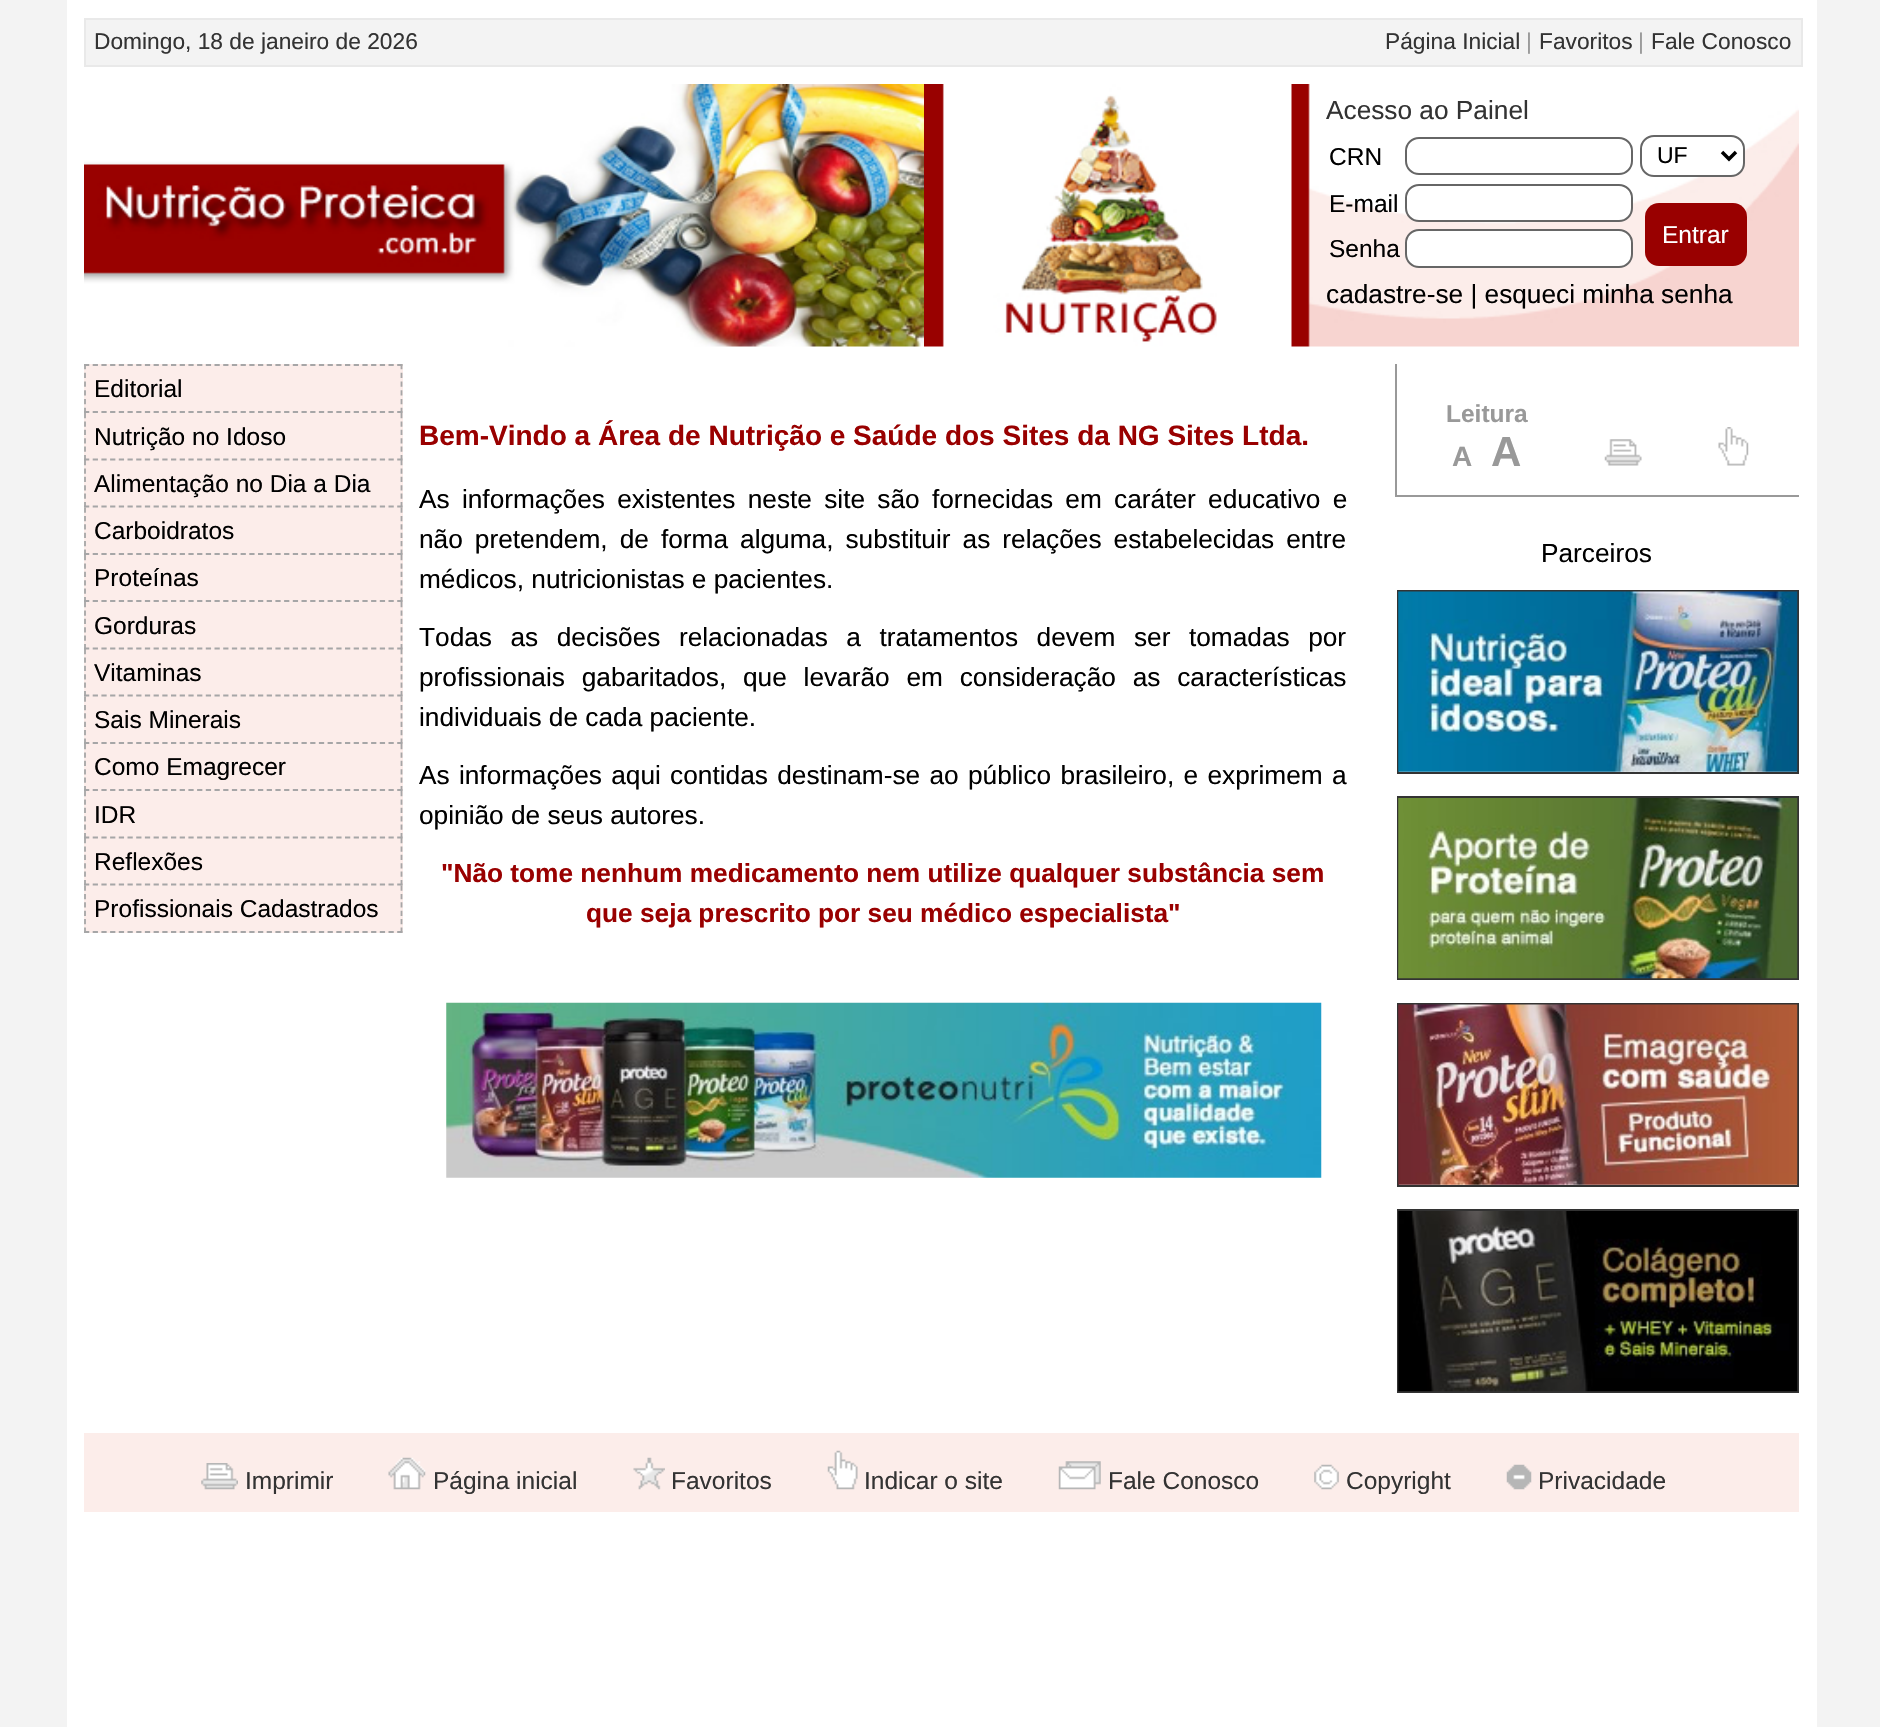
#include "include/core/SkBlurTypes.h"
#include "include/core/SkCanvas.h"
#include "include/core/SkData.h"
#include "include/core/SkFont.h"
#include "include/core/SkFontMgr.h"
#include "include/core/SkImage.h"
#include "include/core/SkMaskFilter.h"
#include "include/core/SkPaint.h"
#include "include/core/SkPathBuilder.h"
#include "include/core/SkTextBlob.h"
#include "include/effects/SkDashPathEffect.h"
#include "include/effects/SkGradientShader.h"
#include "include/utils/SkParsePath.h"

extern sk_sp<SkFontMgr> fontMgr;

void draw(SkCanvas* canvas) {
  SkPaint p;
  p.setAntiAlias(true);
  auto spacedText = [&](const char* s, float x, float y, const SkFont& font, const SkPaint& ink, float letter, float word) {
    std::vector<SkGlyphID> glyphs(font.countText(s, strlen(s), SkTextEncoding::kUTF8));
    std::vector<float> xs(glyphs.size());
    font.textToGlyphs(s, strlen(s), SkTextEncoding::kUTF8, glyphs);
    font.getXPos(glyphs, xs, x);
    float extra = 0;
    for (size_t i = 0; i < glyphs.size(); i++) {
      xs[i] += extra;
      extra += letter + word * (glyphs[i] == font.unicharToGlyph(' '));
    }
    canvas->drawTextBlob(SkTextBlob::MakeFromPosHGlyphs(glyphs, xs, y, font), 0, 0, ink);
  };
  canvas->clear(SkColorSetRGB(243, 243, 243));
  p.setColor(SK_ColorWHITE);
  canvas->drawRect(SkRect::MakeLTRB(67, 0, 1817, 1727), p);
  p.setColor(SkColorSetRGB(243, 243, 243));
  canvas->drawRect(SkRect::MakeLTRB(85, 19, 1802, 66), p);
  p.setStyle(SkPaint::kStroke_Style);
  p.setStrokeWidth(2);
  p.setColor(SkColorSetRGB(233, 233, 233));
  canvas->drawRect(SkRect::MakeLTRB(85, 19, 1802, 66), p);
  canvas->drawImageRect(SkImages::DeferredFromEncodedData(SkData::MakeFromFileName("images/1.png")), SkRect::MakeLTRB(84, 84, 924, 347), SkSamplingOptions());
  canvas->drawImageRect(SkImages::DeferredFromEncodedData(SkData::MakeFromFileName("images/2.png")), SkRect::MakeLTRB(924, 84, 1217, 347), SkSamplingOptions());
  canvas->drawImageRect(SkImages::DeferredFromEncodedData(SkData::MakeFromFileName("images/3.png")), SkRect::MakeLTRB(1291, 84, 1799, 347), SkSamplingOptions());
  p.setColor(SkColorSetRGB(102, 102, 102));
  canvas->drawRoundRect(SkRect::MakeLTRB(1406, 138, 1632, 174), 13, 13, p);
  p.setStyle(SkPaint::kFill_Style);
  p.setColor(SK_ColorWHITE);
  canvas->drawRoundRect(SkRect::MakeLTRB(1641, 136, 1744, 176), 13, 13, p);
  p.setStyle(SkPaint::kStroke_Style);
  p.setColor(SkColorSetRGB(102, 102, 102));
  canvas->drawRoundRect(SkRect::MakeLTRB(1641, 136, 1744, 176), 13, 13, p);
  p.setStrokeWidth(3.5f);
  p.setColor(SK_ColorBLACK);
  canvas->drawPath(SkPathBuilder().moveTo(1722, 152).lineTo(1729, 159).lineTo(1736, 152).detach(), p);
  p.setStyle(SkPaint::kFill_Style);
  p.setColor(SK_ColorWHITE);
  canvas->drawRoundRect(SkRect::MakeLTRB(1406, 185, 1632, 221), 13, 13, p);
  p.setStyle(SkPaint::kStroke_Style);
  p.setStrokeWidth(2);
  p.setColor(SkColorSetRGB(102, 102, 102));
  canvas->drawRoundRect(SkRect::MakeLTRB(1406, 185, 1632, 221), 13, 13, p);
  p.setStyle(SkPaint::kFill_Style);
  p.setColor(SkColorSetRGB(153, 0, 0));
  canvas->drawRoundRect(SkRect::MakeLTRB(1645, 203, 1747, 266), 14, 14, p);
  p.setColor(SK_ColorWHITE);
  canvas->drawRoundRect(SkRect::MakeLTRB(1406, 230, 1632, 267), 13, 13, p);
  p.setStyle(SkPaint::kStroke_Style);
  p.setColor(SkColorSetRGB(102, 102, 102));
  canvas->drawRoundRect(SkRect::MakeLTRB(1406, 230, 1632, 267), 13, 13, p);
  p.setStyle(SkPaint::kFill_Style);
  p.setColor(SkColorSetRGB(252, 237, 234));
  canvas->drawRect(SkRect::MakeLTRB(84, 364, 403, 933), p);
  p.setStyle(SkPaint::kStroke_Style);
  p.setStrokeWidth(1.8f);
  p.setColor(SkColorSetRGB(166, 166, 167));
  p.setPathEffect(SkDashPathEffect::Make({{5.25f, 3.45f}}, 0));
  canvas->drawPath(SkPathBuilder().moveTo(84, 365).lineTo(402.5f, 365).detach(), p);
  p.setPathEffect(nullptr);
  p.setPathEffect(SkDashPathEffect::Make({{5.25f, 3.5f}}, 0));
  canvas->drawPath(SkPathBuilder().moveTo(401.5f, 364).lineTo(401.5f, 413).detach(), p);
  p.setPathEffect(nullptr);
  p.setPathEffect(SkDashPathEffect::Make({{5.25f, 3.45f}}, 0));
  canvas->drawPath(SkPathBuilder().moveTo(84, 412).lineTo(402.5f, 412).detach(), p);
  p.setPathEffect(nullptr);
  p.setPathEffect(SkDashPathEffect::Make({{5.25f, 3.5f}}, 0));
  canvas->drawPath(SkPathBuilder().moveTo(85, 364).lineTo(85, 413).detach(), p);
  p.setPathEffect(nullptr);
  p.setPathEffect(SkDashPathEffect::Make({{5.25f, 3.15f}}, 0));
  canvas->drawPath(SkPathBuilder().moveTo(401.5f, 413).lineTo(401.5f, 460).detach(), p);
  p.setPathEffect(nullptr);
  p.setPathEffect(SkDashPathEffect::Make({{5.25f, 3.45f}}, 0));
  canvas->drawPath(SkPathBuilder().moveTo(84, 459.5f).lineTo(402.5f, 459.5f).detach(), p);
  p.setPathEffect(nullptr);
  p.setPathEffect(SkDashPathEffect::Make({{5.25f, 3.15f}}, 0));
  canvas->drawPath(SkPathBuilder().moveTo(85, 413).lineTo(85, 460).detach(), p);
  p.setPathEffect(nullptr);
  p.setPathEffect(SkDashPathEffect::Make({{5.25f, 3.15f}}, 0));
  canvas->drawPath(SkPathBuilder().moveTo(401.5f, 460).lineTo(401.5f, 507.5f).detach(), p);
  p.setPathEffect(nullptr);
  p.setPathEffect(SkDashPathEffect::Make({{5.25f, 3.45f}}, 0));
  canvas->drawPath(SkPathBuilder().moveTo(84, 506.5f).lineTo(402.5f, 506.5f).detach(), p);
  p.setPathEffect(nullptr);
  p.setPathEffect(SkDashPathEffect::Make({{5.25f, 3.15f}}, 0));
  canvas->drawPath(SkPathBuilder().moveTo(85, 460).lineTo(85, 507.5f).detach(), p);
  p.setPathEffect(nullptr);
  p.setPathEffect(SkDashPathEffect::Make({{5.25f, 3.15f}}, 0));
  canvas->drawPath(SkPathBuilder().moveTo(401.5f, 507.5f).lineTo(401.5f, 555).detach(), p);
  p.setPathEffect(nullptr);
  p.setPathEffect(SkDashPathEffect::Make({{5.25f, 3.45f}}, 0));
  canvas->drawPath(SkPathBuilder().moveTo(84, 554).lineTo(402.5f, 554).detach(), p);
  p.setPathEffect(nullptr);
  p.setPathEffect(SkDashPathEffect::Make({{5.25f, 3.15f}}, 0));
  canvas->drawPath(SkPathBuilder().moveTo(85, 507.5f).lineTo(85, 555).detach(), p);
  p.setPathEffect(nullptr);
  p.setPathEffect(SkDashPathEffect::Make({{5.25f, 3.15f}}, 0));
  canvas->drawPath(SkPathBuilder().moveTo(401.5f, 555).lineTo(401.5f, 602).detach(), p);
  p.setPathEffect(nullptr);
  p.setPathEffect(SkDashPathEffect::Make({{5.25f, 3.45f}}, 0));
  canvas->drawPath(SkPathBuilder().moveTo(84, 601).lineTo(402.5f, 601).detach(), p);
  p.setPathEffect(nullptr);
  p.setPathEffect(SkDashPathEffect::Make({{5.25f, 3.15f}}, 0));
  canvas->drawPath(SkPathBuilder().moveTo(85, 555).lineTo(85, 602).detach(), p);
  p.setPathEffect(nullptr);
  p.setPathEffect(SkDashPathEffect::Make({{5.25f, 3.15f}}, 0));
  canvas->drawPath(SkPathBuilder().moveTo(401.5f, 602).lineTo(401.5f, 649).detach(), p);
  p.setPathEffect(nullptr);
  p.setPathEffect(SkDashPathEffect::Make({{5.25f, 3.45f}}, 0));
  canvas->drawPath(SkPathBuilder().moveTo(84, 648.5f).lineTo(402.5f, 648.5f).detach(), p);
  p.setPathEffect(nullptr);
  p.setPathEffect(SkDashPathEffect::Make({{5.25f, 3.15f}}, 0));
  canvas->drawPath(SkPathBuilder().moveTo(85, 602).lineTo(85, 649).detach(), p);
  p.setPathEffect(nullptr);
  p.setPathEffect(SkDashPathEffect::Make({{5.25f, 3.15f}}, 0));
  canvas->drawPath(SkPathBuilder().moveTo(401.5f, 649).lineTo(401.5f, 696.5f).detach(), p);
  p.setPathEffect(nullptr);
  p.setPathEffect(SkDashPathEffect::Make({{5.25f, 3.45f}}, 0));
  canvas->drawPath(SkPathBuilder().moveTo(84, 695.5f).lineTo(402.5f, 695.5f).detach(), p);
  p.setPathEffect(nullptr);
  p.setPathEffect(SkDashPathEffect::Make({{5.25f, 3.15f}}, 0));
  canvas->drawPath(SkPathBuilder().moveTo(85, 649).lineTo(85, 696.5f).detach(), p);
  p.setPathEffect(nullptr);
  p.setPathEffect(SkDashPathEffect::Make({{5.25f, 3.15f}}, 0));
  canvas->drawPath(SkPathBuilder().moveTo(401.5f, 696.5f).lineTo(401.5f, 744).detach(), p);
  p.setPathEffect(nullptr);
  p.setPathEffect(SkDashPathEffect::Make({{5.25f, 3.45f}}, 0));
  canvas->drawPath(SkPathBuilder().moveTo(84, 743).lineTo(402.5f, 743).detach(), p);
  p.setPathEffect(nullptr);
  p.setPathEffect(SkDashPathEffect::Make({{5.25f, 3.15f}}, 0));
  canvas->drawPath(SkPathBuilder().moveTo(85, 696.5f).lineTo(85, 744).detach(), p);
  p.setPathEffect(nullptr);
  p.setPathEffect(SkDashPathEffect::Make({{5.25f, 3.15f}}, 0));
  canvas->drawPath(SkPathBuilder().moveTo(401.5f, 744).lineTo(401.5f, 791).detach(), p);
  p.setPathEffect(nullptr);
  p.setPathEffect(SkDashPathEffect::Make({{5.25f, 3.45f}}, 0));
  canvas->drawPath(SkPathBuilder().moveTo(84, 790).lineTo(402.5f, 790).detach(), p);
  p.setPathEffect(nullptr);
  p.setPathEffect(SkDashPathEffect::Make({{5.25f, 3.15f}}, 0));
  canvas->drawPath(SkPathBuilder().moveTo(85, 744).lineTo(85, 791).detach(), p);
  p.setPathEffect(nullptr);
  p.setPathEffect(SkDashPathEffect::Make({{5.25f, 3.15f}}, 0));
  canvas->drawPath(SkPathBuilder().moveTo(401.5f, 791).lineTo(401.5f, 838).detach(), p);
  p.setPathEffect(nullptr);
  p.setPathEffect(SkDashPathEffect::Make({{5.25f, 3.45f}}, 0));
  canvas->drawPath(SkPathBuilder().moveTo(84, 837.5f).lineTo(402.5f, 837.5f).detach(), p);
  p.setPathEffect(nullptr);
  p.setPathEffect(SkDashPathEffect::Make({{5.25f, 3.15f}}, 0));
  canvas->drawPath(SkPathBuilder().moveTo(85, 791).lineTo(85, 838).detach(), p);
  p.setPathEffect(nullptr);
  p.setPathEffect(SkDashPathEffect::Make({{5.25f, 3.15f}}, 0));
  canvas->drawPath(SkPathBuilder().moveTo(401.5f, 838).lineTo(401.5f, 885.5f).detach(), p);
  p.setPathEffect(nullptr);
  p.setPathEffect(SkDashPathEffect::Make({{5.25f, 3.45f}}, 0));
  canvas->drawPath(SkPathBuilder().moveTo(84, 884.5f).lineTo(402.5f, 884.5f).detach(), p);
  p.setPathEffect(nullptr);
  p.setPathEffect(SkDashPathEffect::Make({{5.25f, 3.15f}}, 0));
  canvas->drawPath(SkPathBuilder().moveTo(85, 838).lineTo(85, 885.5f).detach(), p);
  p.setPathEffect(nullptr);
  p.setPathEffect(SkDashPathEffect::Make({{5.25f, 3.15f}}, 0));
  canvas->drawPath(SkPathBuilder().moveTo(401.5f, 885.5f).lineTo(401.5f, 933).detach(), p);
  p.setPathEffect(nullptr);
  p.setPathEffect(SkDashPathEffect::Make({{5.25f, 3.45f}}, 0));
  canvas->drawPath(SkPathBuilder().moveTo(84, 932).lineTo(402.5f, 932).detach(), p);
  p.setPathEffect(nullptr);
  p.setPathEffect(SkDashPathEffect::Make({{5.25f, 3.15f}}, 0));
  canvas->drawPath(SkPathBuilder().moveTo(85, 885.5f).lineTo(85, 933).detach(), p);
  p.setPathEffect(nullptr);
  canvas->drawImageRect(SkImages::DeferredFromEncodedData(SkData::MakeFromFileName("images/4.png")), SkRect::MakeLTRB(446, 1002, 1322, 1178), SkSamplingOptions());
  p.setStyle(SkPaint::kFill_Style);
  p.setColor(SkColorSetRGB(153, 153, 153));
  canvas->drawRect(SkRect::MakeLTRB(1395, 495, 1799, 497), p);
  canvas->drawRect(SkRect::MakeLTRB(1395, 364, 1397, 497), p);
  canvas->drawImageRect(SkImages::DeferredFromEncodedData(SkData::MakeFromFileName("images/5.png")), SkRect::MakeLTRB(1604, 439, 1642, 466), SkSamplingOptions());
  canvas->drawImageRect(SkImages::DeferredFromEncodedData(SkData::MakeFromFileName("images/6.png")), SkRect::MakeLTRB(1718, 427, 1749, 466), SkSamplingOptions());
  p.setStyle(SkPaint::kStroke_Style);
  p.setStrokeWidth(2);
  p.setColor(SkColorSetRGB(51, 51, 51));
  canvas->drawRect(SkRect::MakeLTRB(1398, 591, 1798, 773), p);
  canvas->drawImageRect(SkImages::DeferredFromEncodedData(SkData::MakeFromFileName("images/7.png")), SkRect::MakeLTRB(1398, 591, 1798, 772), SkSamplingOptions());
  canvas->drawRect(SkRect::MakeLTRB(1398, 797, 1798, 979), p);
  canvas->drawImageRect(SkImages::DeferredFromEncodedData(SkData::MakeFromFileName("images/8.png")), SkRect::MakeLTRB(1398, 798, 1798, 979), SkSamplingOptions());
  canvas->drawRect(SkRect::MakeLTRB(1398, 1004, 1798, 1186), p);
  canvas->drawImageRect(SkImages::DeferredFromEncodedData(SkData::MakeFromFileName("images/9.png")), SkRect::MakeLTRB(1398, 1004, 1798, 1185), SkSamplingOptions());
  canvas->drawRect(SkRect::MakeLTRB(1398, 1210, 1798, 1392), p);
  canvas->drawImageRect(SkImages::DeferredFromEncodedData(SkData::MakeFromFileName("images/10.png")), SkRect::MakeLTRB(1398, 1211, 1798, 1392), SkSamplingOptions());
  p.setStyle(SkPaint::kFill_Style);
  p.setColor(SkColorSetRGB(252, 237, 234));
  canvas->drawRect(SkRect::MakeLTRB(84, 1433, 1799, 1512), p);
  canvas->drawImageRect(SkImages::DeferredFromEncodedData(SkData::MakeFromFileName("images/11.png")), SkRect::MakeLTRB(201, 1463, 238, 1490), SkSamplingOptions());
  canvas->drawImageRect(SkImages::DeferredFromEncodedData(SkData::MakeFromFileName("images/12.png")), SkRect::MakeLTRB(388, 1457, 426, 1490), SkSamplingOptions());
  canvas->drawImageRect(SkImages::DeferredFromEncodedData(SkData::MakeFromFileName("images/13.png")), SkRect::MakeLTRB(633, 1457, 665, 1490), SkSamplingOptions());
  canvas->drawImageRect(SkImages::DeferredFromEncodedData(SkData::MakeFromFileName("images/14.png")), SkRect::MakeLTRB(827, 1450, 858, 1490), SkSamplingOptions());
  canvas->drawImageRect(SkImages::DeferredFromEncodedData(SkData::MakeFromFileName("images/15.png")), SkRect::MakeLTRB(1058, 1461, 1101, 1490), SkSamplingOptions());
  canvas->drawImageRect(SkImages::DeferredFromEncodedData(SkData::MakeFromFileName("images/16.png")), SkRect::MakeLTRB(1314, 1464, 1339, 1490), SkSamplingOptions());
  canvas->drawImageRect(SkImages::DeferredFromEncodedData(SkData::MakeFromFileName("images/17.png")), SkRect::MakeLTRB(1506, 1464, 1532, 1490), SkSamplingOptions());
  SkFont font1(fontMgr->matchFamilyStyle("Liberation Sans", SkFontStyle::Normal()), 22.75f);
  font1.setSubpixel(true);
  p.setColor(SkColorSetRGB(51, 51, 51));
  canvas->drawString("Domingo, 18 de janeiro de 2026", 94, 49, font1, p);
  canvas->drawString("Página Inicial", 1385, 49, font1, p);
  p.setColor(SkColorSetRGB(153, 153, 153));
  canvas->drawString("|", 1526, 49, font1, p);
  p.setColor(SkColorSetRGB(51, 51, 51));
  canvas->drawString("Favoritos", 1539, 49, font1, p);
  p.setColor(SkColorSetRGB(153, 153, 153));
  canvas->drawString("|", 1638, 49, font1, p);
  p.setColor(SkColorSetRGB(51, 51, 51));
  canvas->drawString("Fale Conosco", 1651, 49, font1, p);
  SkFont font2(fontMgr->matchFamilyStyle("Liberation Sans", SkFontStyle::Normal()), 26.25f);
  font2.setSubpixel(true);
  canvas->drawString("Acesso ao Painel", 1326, 119, font2, p);
  SkFont font3(fontMgr->matchFamilyStyle("Liberation Sans", SkFontStyle::Normal()), 24.5f);
  font3.setSubpixel(true);
  p.setColor(SK_ColorBLACK);
  canvas->drawString("CRN", 1329, 165, font3, p);
  SkFont font4(fontMgr->matchFamilyStyle("Liberation Sans", SkFontStyle::Normal()), 23);
  font4.setSubpixel(true);
  canvas->drawString("UF", 1657, 163, font4, p);
  canvas->drawString("E-mail", 1329, 212, font3, p);
  p.setColor(SK_ColorWHITE);
  canvas->drawString("Entrar", 1662, 243, font3, p);
  p.setColor(SK_ColorBLACK);
  canvas->drawString("Senha", 1329, 257, font3, p);
  canvas->drawString("cadastre-se | esqueci minha senha", 1326, 303, font2, p);
  canvas->drawString("Editorial", 94, 397, font3, p);
  canvas->drawString("Nutrição no Idoso", 94, 445, font3, p);
  canvas->drawString("Alimentação no Dia a Dia", 94, 492, font3, p);
  canvas->drawString("Carboidratos", 94, 539, font3, p);
  canvas->drawString("Proteínas", 94, 586, font3, p);
  canvas->drawString("Gorduras", 94, 634, font3, p);
  canvas->drawString("Vitaminas", 94, 681, font3, p);
  canvas->drawString("Sais Minerais", 94, 728, font3, p);
  canvas->drawString("Como Emagrecer", 94, 775, font3, p);
  canvas->drawString("IDR", 94, 823, font3, p);
  canvas->drawString("Reflexões", 94, 870, font3, p);
  canvas->drawString("Profissionais Cadastrados", 94, 917, font3, p);
  SkFont font5(fontMgr->matchFamilyStyle("Liberation Sans", SkFontStyle::Bold()), 28);
  font5.setSubpixel(true);
  p.setColor(SkColorSetRGB(153, 0, 0));
  canvas->drawString("Bem-Vindo a Área de Nutrição e Saúde dos Sites da NG Sites Ltda.", 419, 445, font5, p);
  p.setColor(SK_ColorBLACK);
  spacedText("As informações existentes neste site são fornecidas em caráter educativo e", 419, 508, font2, p, 0, 5);
  spacedText("não pretendem, de forma alguma, substituir as relações estabelecidas entre", 419, 548, font2, p, 0, 4.75f);
  canvas->drawString("médicos, nutricionistas e pacientes.", 419, 588, font2, p);
  spacedText("Todas as decisões relacionadas a tratamentos devem ser tomadas por", 419, 646, font2, p, 0, 11.25f);
  spacedText("profissionais gabaritados, que levarão em consideração as características", 419, 686, font2, p, 0, 9.5f);
  canvas->drawString("individuais de cada paciente.", 419, 726, font2, p);
  spacedText("As informações aqui contidas destinam-se ao público brasileiro, e exprimem a", 419, 784, font2, p, 0, 2);
  canvas->drawString("opinião de seus autores.", 419, 824, font2, p);
  SkFont font6(fontMgr->matchFamilyStyle("Liberation Sans", SkFontStyle::Bold()), 26.25f);
  font6.setSubpixel(true);
  p.setColor(SkColorSetRGB(153, 0, 0));
  canvas->drawString("\"Não tome nenhum medicamento nem utilize qualquer substância sem", 441, 882, font6, p);
  canvas->drawString("que seja prescrito por seu médico especialista\"", 586, 922, font6, p);
  SkFont font7(fontMgr->matchFamilyStyle("Liberation Sans", SkFontStyle::Bold()), 24.5f);
  font7.setSubpixel(true);
  p.setColor(SkColorSetRGB(153, 153, 153));
  canvas->drawString("Leitura", 1446, 422, font7, p);
  canvas->drawString("A", 1452, 466, font5, p);
  SkFont font8(fontMgr->matchFamilyStyle("Liberation Sans", SkFontStyle::Bold()), 42);
  font8.setSubpixel(true);
  canvas->drawString("A", 1491, 466, font8, p);
  p.setColor(SK_ColorBLACK);
  canvas->drawString("Parceiros", 1541, 562, font2, p);
  p.setColor(SkColorSetRGB(51, 51, 51));
  canvas->drawString("Imprimir", 245, 1489, font3, p);
  canvas->drawString("Página inicial", 433, 1489, font3, p);
  canvas->drawString("Favoritos", 671, 1489, font3, p);
  canvas->drawString("Indicar o site", 864, 1489, font3, p);
  canvas->drawString("Fale Conosco", 1108, 1489, font3, p);
  canvas->drawString("Copyright", 1346, 1489, font3, p);
  canvas->drawString("Privacidade", 1538, 1489, font3, p);
}
